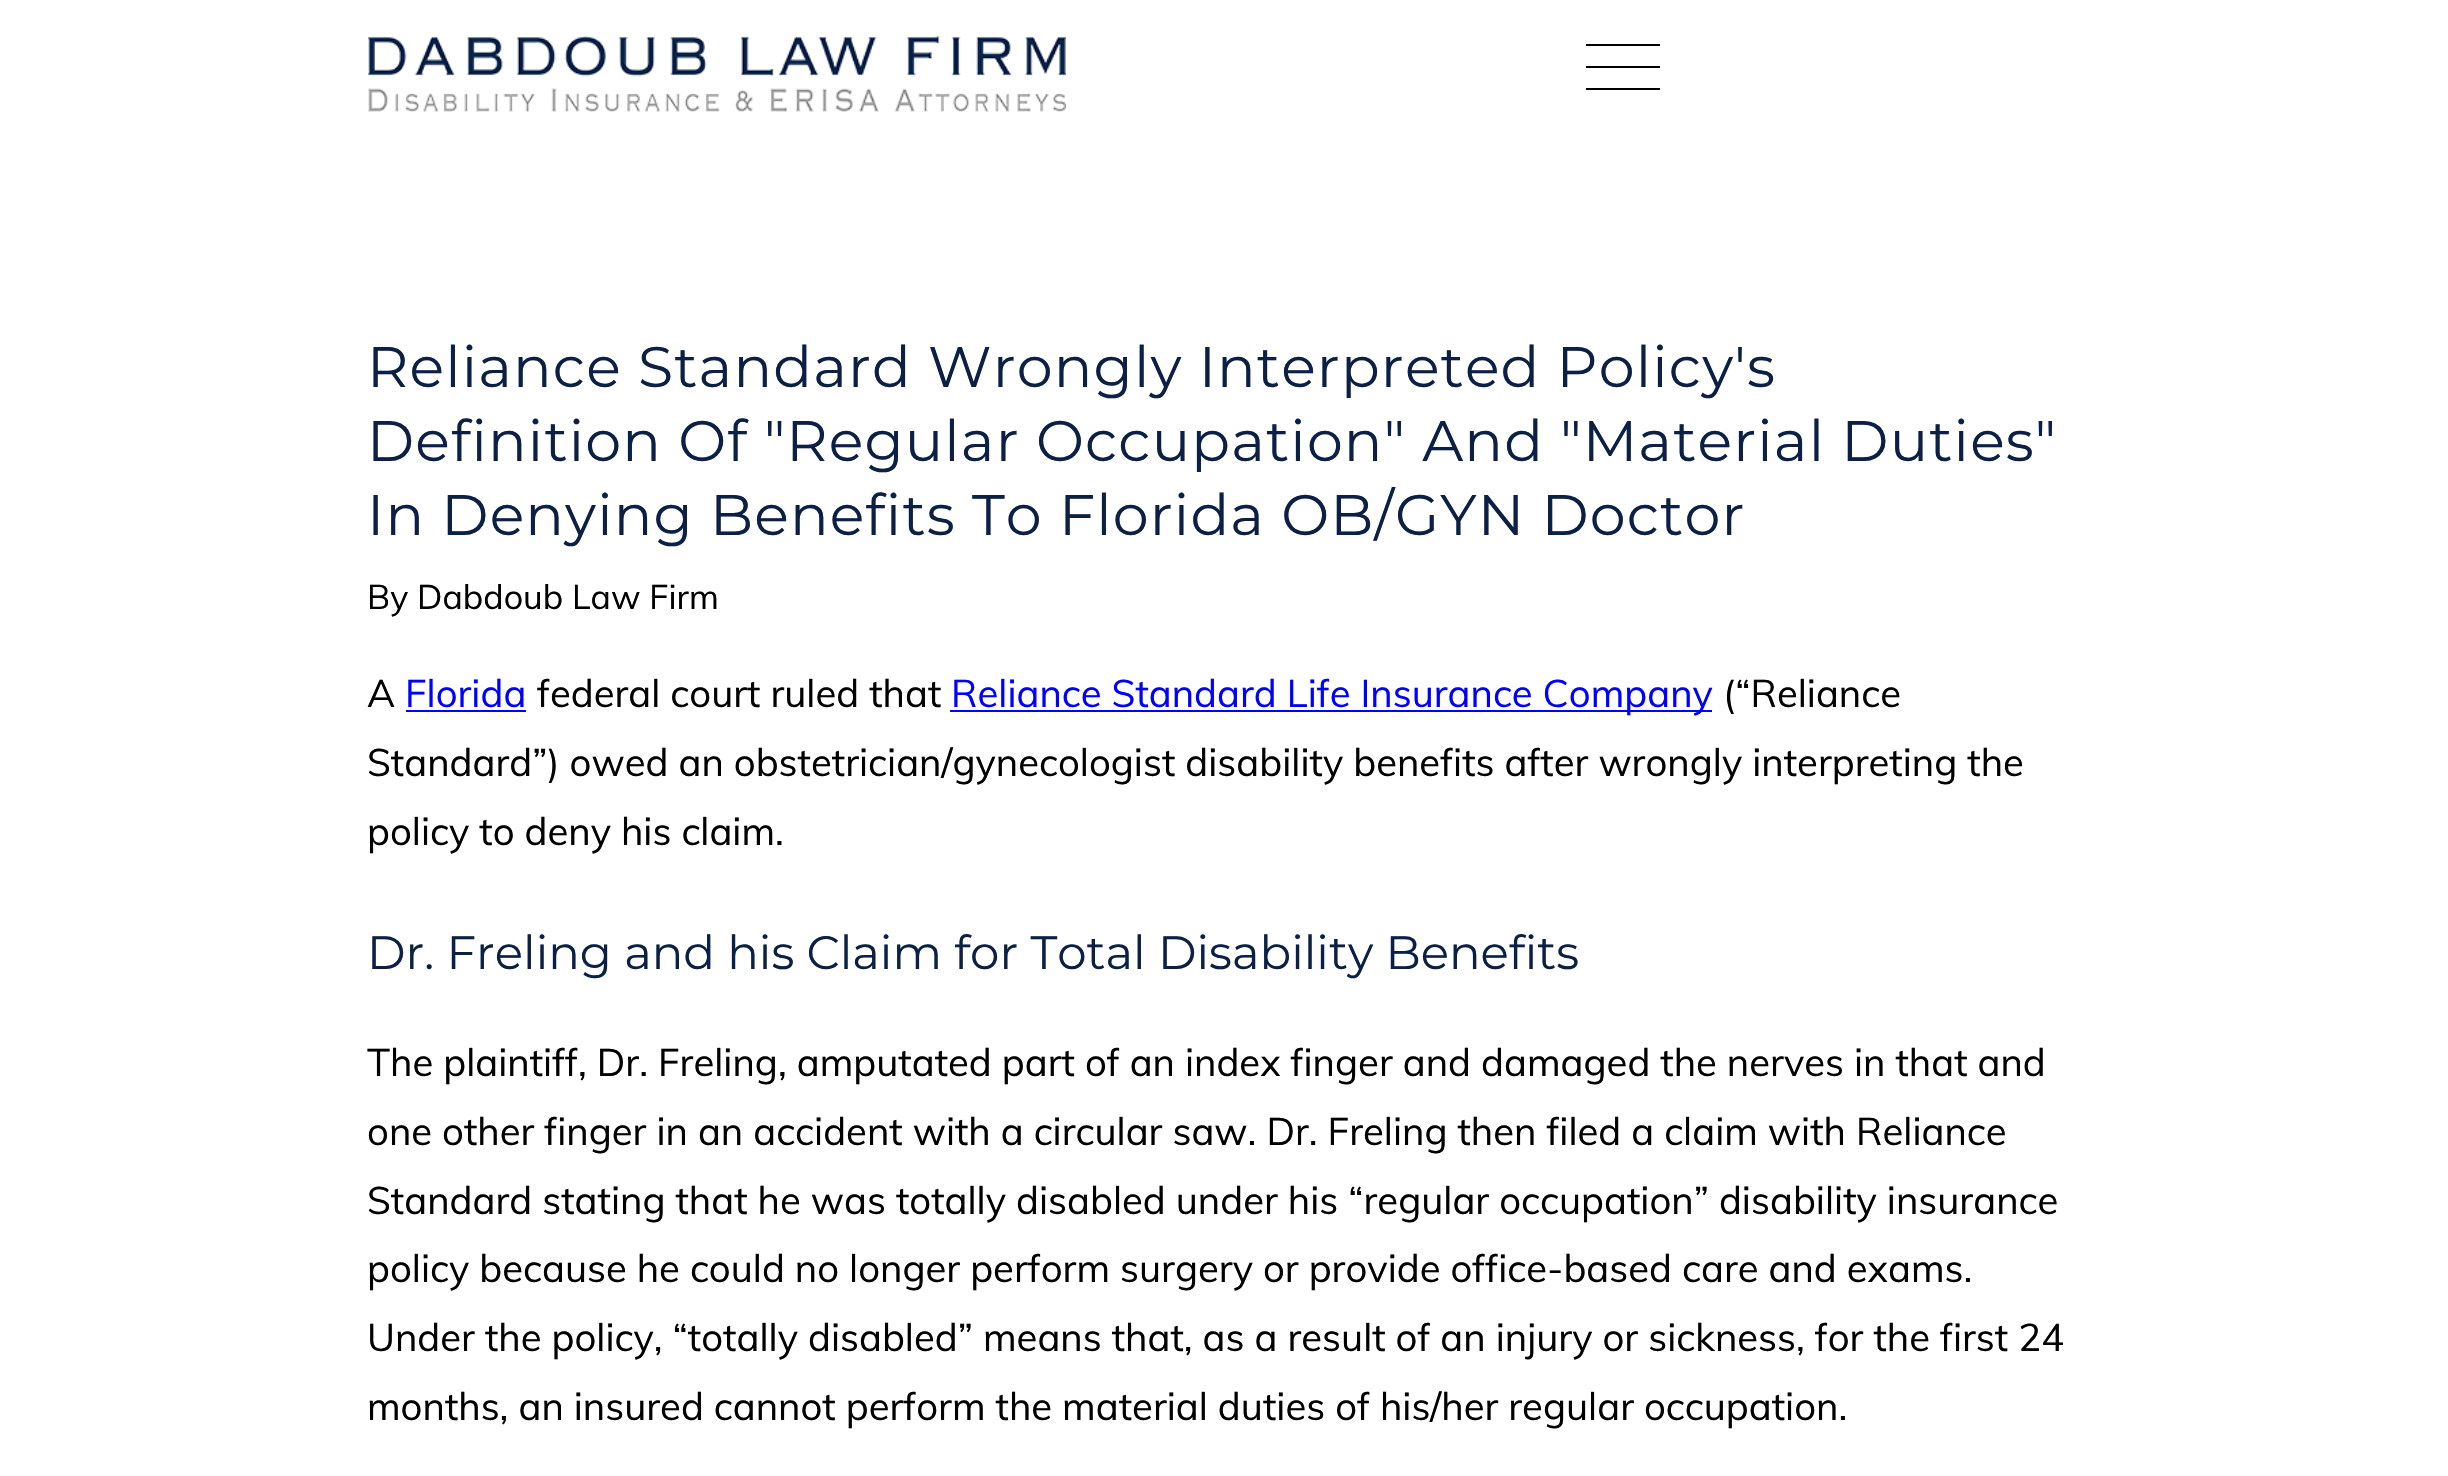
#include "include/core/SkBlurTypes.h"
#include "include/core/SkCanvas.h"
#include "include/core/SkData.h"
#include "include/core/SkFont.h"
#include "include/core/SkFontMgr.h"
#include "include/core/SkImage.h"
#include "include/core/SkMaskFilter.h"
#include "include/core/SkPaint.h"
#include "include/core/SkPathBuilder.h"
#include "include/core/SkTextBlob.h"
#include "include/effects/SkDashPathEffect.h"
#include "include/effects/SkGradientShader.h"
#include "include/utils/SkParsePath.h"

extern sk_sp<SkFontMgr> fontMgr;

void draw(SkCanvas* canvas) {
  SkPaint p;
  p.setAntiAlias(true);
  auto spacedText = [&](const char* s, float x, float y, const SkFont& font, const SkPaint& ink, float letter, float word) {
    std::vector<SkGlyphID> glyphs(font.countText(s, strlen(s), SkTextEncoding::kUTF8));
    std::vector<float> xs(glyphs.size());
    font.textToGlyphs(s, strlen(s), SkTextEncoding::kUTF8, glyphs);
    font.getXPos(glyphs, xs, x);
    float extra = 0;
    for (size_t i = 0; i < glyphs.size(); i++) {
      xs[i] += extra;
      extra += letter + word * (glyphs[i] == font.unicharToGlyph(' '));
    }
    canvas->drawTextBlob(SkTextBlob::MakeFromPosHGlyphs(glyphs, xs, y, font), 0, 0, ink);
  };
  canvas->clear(SK_ColorWHITE);
  canvas->drawImageRect(SkImages::DeferredFromEncodedData(SkData::MakeFromFileName("images/1.png")), SkRect::MakeLTRB(368, 36, 1066, 112), SkSamplingOptions());
  p.setColor(SK_ColorBLACK);
  canvas->drawRect(SkRect::MakeLTRB(1586, 44, 1660, 46), p);
  canvas->drawRect(SkRect::MakeLTRB(1586, 66, 1660, 68), p);
  canvas->drawRect(SkRect::MakeLTRB(1586, 88, 1660, 90), p);
  p.setColor(SkColorSetRGB(0, 0, 255));
  canvas->drawRect(SkRect::MakeLTRB(406, 710, 526, 712), p);
  canvas->drawRect(SkRect::MakeLTRB(950, 710, 1712, 712), p);
  SkFont font1(fontMgr->matchFamilyStyle("Montserrat", SkFontStyle::Normal()), 57.15f);
  font1.setSubpixel(true);
  p.setColor(SkColorSetRGB(11, 32, 68));
  spacedText("Reliance Standard Wrongly Interpreted Policy's", 367, 387, font1, p, 1.15f, 0);
  spacedText("Definition Of \"Regular Occupation\" And \"Material Duties\"", 367, 461, font1, p, 1.15f, 0);
  spacedText("In Denying Benefits To Florida OB/GYN Doctor", 367, 535, font1, p, 1.15f, 0);
  SkFont font2(fontMgr->matchFamilyStyle("Muli", SkFontStyle::Normal()), 34);
  font2.setSubpixel(true);
  p.setColor(SK_ColorBLACK);
  canvas->drawString("By Dabdoub Law Firm", 367, 609, font2, p);
  SkFont font3(fontMgr->matchFamilyStyle("Muli", SkFontStyle::Normal()), 38.25f);
  font3.setSubpixel(true);
  canvas->drawString("A", 367, 707, font3, p);
  p.setColor(SkColorSetRGB(0, 0, 255));
  canvas->drawString("Florida", 405, 707, font3, p);
  p.setColor(SK_ColorBLACK);
  canvas->drawString("federal court ruled that", 537, 707, font3, p);
  p.setColor(SkColorSetRGB(0, 0, 255));
  canvas->drawString("Reliance Standard Life Insurance Company", 951, 707, font3, p);
  p.setColor(SK_ColorBLACK);
  canvas->drawString("(“Reliance", 1723, 707, font3, p);
  canvas->drawString("Standard”) owed an obstetrician/gynecologist disability benefits after wrongly interpreting the", 367, 776, font3, p);
  canvas->drawString("policy to deny his claim.", 367, 845, font3, p);
  SkFont font4(fontMgr->matchFamilyStyle("Montserrat", SkFontStyle::Normal()), 46.75f);
  font4.setSubpixel(true);
  p.setColor(SkColorSetRGB(11, 32, 68));
  canvas->drawString("Dr. Freling and his Claim for Total Disability Benefits", 367, 969, font4, p);
  p.setColor(SK_ColorBLACK);
  canvas->drawString("The plaintiff, Dr. Freling, amputated part of an index finger and damaged the nerves in that and", 367, 1076, font3, p);
  canvas->drawString("one other finger in an accident with a circular saw. Dr. Freling then filed a claim with Reliance", 367, 1145, font3, p);
  canvas->drawString("Standard stating that he was totally disabled under his “regular occupation” disability insurance", 367, 1214, font3, p);
  canvas->drawString("policy because he could no longer perform surgery or provide office-based care and exams.", 367, 1282, font3, p);
  canvas->drawString("Under the policy, “totally disabled” means that, as a result of an injury or sickness, for the first 24", 367, 1351, font3, p);
  canvas->drawString("months, an insured cannot perform the material duties of his/her regular occupation.", 367, 1420, font3, p);
}
